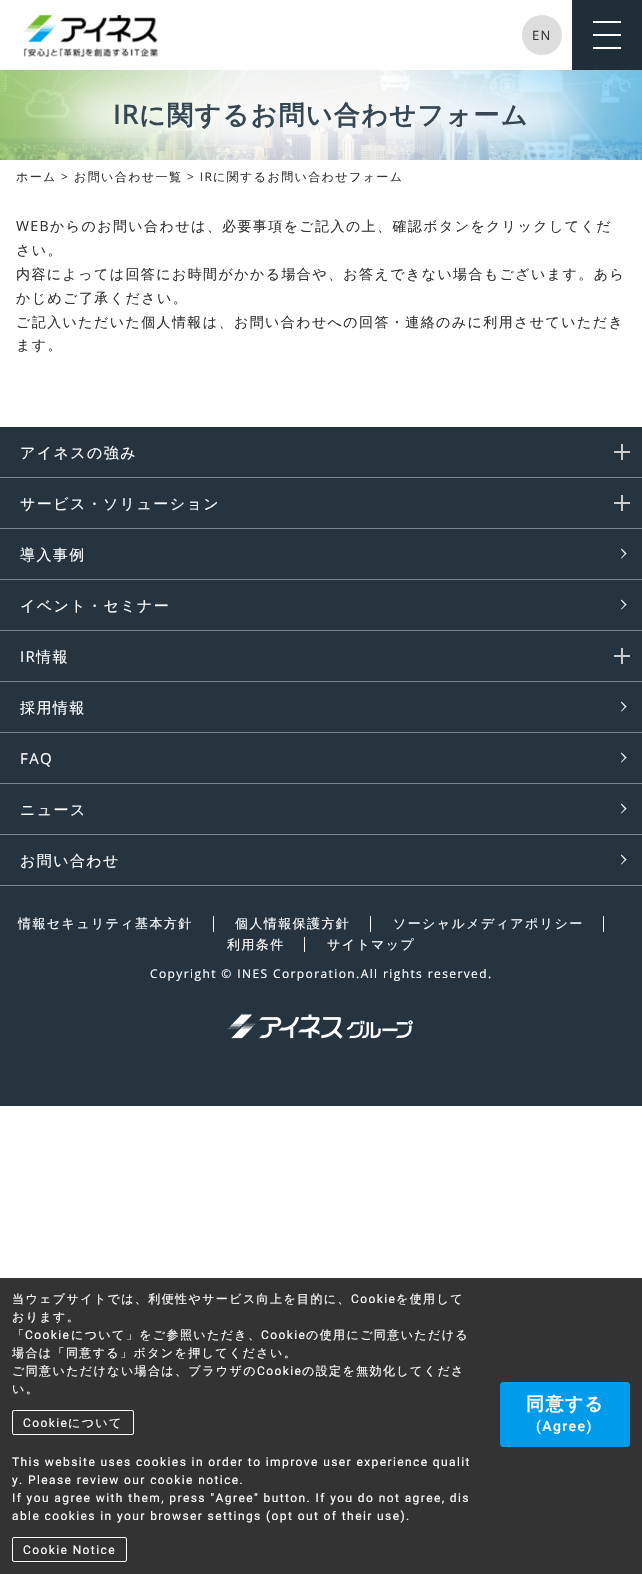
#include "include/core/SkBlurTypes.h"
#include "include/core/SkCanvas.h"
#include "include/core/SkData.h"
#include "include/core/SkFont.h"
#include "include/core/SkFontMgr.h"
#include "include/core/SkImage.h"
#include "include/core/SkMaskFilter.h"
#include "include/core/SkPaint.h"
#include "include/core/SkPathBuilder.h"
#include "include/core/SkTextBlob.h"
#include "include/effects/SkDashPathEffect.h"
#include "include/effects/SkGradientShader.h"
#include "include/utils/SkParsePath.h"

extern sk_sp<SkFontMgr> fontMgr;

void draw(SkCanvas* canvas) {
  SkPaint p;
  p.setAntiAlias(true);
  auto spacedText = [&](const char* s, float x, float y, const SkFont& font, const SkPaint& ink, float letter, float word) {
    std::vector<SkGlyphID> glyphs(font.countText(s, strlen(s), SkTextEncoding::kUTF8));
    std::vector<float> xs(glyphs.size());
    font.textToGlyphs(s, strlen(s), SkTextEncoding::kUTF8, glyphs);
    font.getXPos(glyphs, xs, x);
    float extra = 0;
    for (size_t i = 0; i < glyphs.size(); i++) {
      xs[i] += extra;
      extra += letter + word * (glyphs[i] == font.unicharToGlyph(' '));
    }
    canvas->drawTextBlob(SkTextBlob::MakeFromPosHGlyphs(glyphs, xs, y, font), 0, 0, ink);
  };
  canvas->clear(SK_ColorWHITE);
  canvas->drawImageRect(SkImages::DeferredFromEncodedData(SkData::MakeFromFileName("images/2.png")), SkRect::MakeLTRB(0, 70, 642, 160), SkSamplingOptions());
  p.setColor(SK_ColorWHITE);
  p.setMaskFilter(SkMaskFilter::MakeBlur(kNormal_SkBlurStyle, 20));
  canvas->drawRect(SkRect::MakeLTRB(72, 96, 571, 133), p);
  p.setMaskFilter(nullptr);
  canvas->drawImageRect(SkImages::DeferredFromEncodedData(SkData::MakeFromFileName("images/1.png")), SkRect::MakeLTRB(23, 14, 158, 57), SkSamplingOptions());
  p.setColor(SkColorSetRGB(221, 221, 221));
  canvas->drawCircle(542, 35, 20, p);
  p.setColor(SkColorSetRGB(32, 46, 57));
  canvas->drawRect(SkRect::MakeLTRB(572, 0, 642, 70), p);
  p.setColor(SK_ColorWHITE);
  canvas->drawRect(SkRect::MakeLTRB(593, 34, 621, 36), p);
  canvas->drawRect(SkRect::MakeLTRB(593, 21, 621, 23), p);
  canvas->drawRect(SkRect::MakeLTRB(593, 47, 621, 49), p);
  p.setColor(SkColorSetRGB(38, 52, 63));
  canvas->drawRect(SkRect::MakeLTRB(0, 427, 642, 1106), p);
  p.setColor(SkColorSetRGB(125, 133, 140));
  canvas->drawRect(SkRect::MakeLTRB(0, 477, 642, 478), p);
  p.setColor(SkColorSetRGB(204, 204, 204));
  canvas->drawRect(SkRect::MakeLTRB(614, 451, 630, 453), p);
  canvas->drawRect(SkRect::MakeLTRB(621, 444, 623, 460), p);
  p.setColor(SkColorSetRGB(125, 133, 140));
  canvas->drawRect(SkRect::MakeLTRB(0, 528, 642, 529), p);
  p.setColor(SkColorSetRGB(204, 204, 204));
  canvas->drawRect(SkRect::MakeLTRB(614, 502, 630, 504), p);
  canvas->drawRect(SkRect::MakeLTRB(621, 495, 623, 511), p);
  p.setColor(SkColorSetRGB(125, 133, 140));
  canvas->drawRect(SkRect::MakeLTRB(0, 579, 642, 580), p);
  p.setColor(SK_ColorWHITE);
  canvas->drawPath(SkPathBuilder().moveTo(621.5f, 548.5f).lineTo(626.5f, 553.5f).lineTo(625.5f, 554.5f).lineTo(621, 549.5f).close().detach(), p);
  canvas->drawPath(SkPathBuilder().moveTo(625.5f, 553).lineTo(626.5f, 553.5f).lineTo(621.5f, 558.5f).lineTo(621, 558).close().detach(), p);
  p.setColor(SkColorSetRGB(125, 133, 140));
  canvas->drawRect(SkRect::MakeLTRB(0, 630, 642, 631), p);
  p.setColor(SK_ColorWHITE);
  canvas->drawPath(SkPathBuilder().moveTo(621.5f, 599.5f).lineTo(626.5f, 604.5f).lineTo(625.5f, 605.5f).lineTo(621, 600.5f).close().detach(), p);
  canvas->drawPath(SkPathBuilder().moveTo(625.5f, 604).lineTo(626.5f, 604.5f).lineTo(621.5f, 609.5f).lineTo(621, 609).close().detach(), p);
  p.setColor(SkColorSetRGB(125, 133, 140));
  canvas->drawRect(SkRect::MakeLTRB(0, 681, 642, 682), p);
  p.setColor(SkColorSetRGB(204, 204, 204));
  canvas->drawRect(SkRect::MakeLTRB(614, 655, 630, 657), p);
  canvas->drawRect(SkRect::MakeLTRB(621, 648, 623, 664), p);
  p.setColor(SkColorSetRGB(125, 133, 140));
  canvas->drawRect(SkRect::MakeLTRB(0, 732, 642, 733), p);
  p.setColor(SK_ColorWHITE);
  canvas->drawPath(SkPathBuilder().moveTo(621.5f, 701.5f).lineTo(626.5f, 706.5f).lineTo(625.5f, 707.5f).lineTo(621, 702.5f).close().detach(), p);
  canvas->drawPath(SkPathBuilder().moveTo(625.5f, 706).lineTo(626.5f, 706.5f).lineTo(621.5f, 711.5f).lineTo(621, 711).close().detach(), p);
  p.setColor(SkColorSetRGB(125, 133, 140));
  canvas->drawRect(SkRect::MakeLTRB(0, 783, 642, 784), p);
  p.setColor(SK_ColorWHITE);
  canvas->drawPath(SkPathBuilder().moveTo(621.5f, 752.5f).lineTo(626.5f, 757.5f).lineTo(625.5f, 758.5f).lineTo(621, 753.5f).close().detach(), p);
  canvas->drawPath(SkPathBuilder().moveTo(625.5f, 757).lineTo(626.5f, 757.5f).lineTo(621.5f, 762.5f).lineTo(621, 762).close().detach(), p);
  p.setColor(SkColorSetRGB(125, 133, 140));
  canvas->drawRect(SkRect::MakeLTRB(0, 834, 642, 835), p);
  p.setColor(SK_ColorWHITE);
  canvas->drawPath(SkPathBuilder().moveTo(621.5f, 803.5f).lineTo(626.5f, 808.5f).lineTo(625.5f, 809.5f).lineTo(621, 804.5f).close().detach(), p);
  canvas->drawPath(SkPathBuilder().moveTo(625.5f, 808).lineTo(626.5f, 808.5f).lineTo(621.5f, 813.5f).lineTo(621, 813).close().detach(), p);
  p.setColor(SkColorSetRGB(125, 133, 140));
  canvas->drawRect(SkRect::MakeLTRB(0, 885, 642, 886), p);
  p.setColor(SK_ColorWHITE);
  canvas->drawPath(SkPathBuilder().moveTo(621.5f, 854.5f).lineTo(626.5f, 859.5f).lineTo(625.5f, 860.5f).lineTo(621, 855.5f).close().detach(), p);
  canvas->drawPath(SkPathBuilder().moveTo(625.5f, 859).lineTo(626.5f, 859.5f).lineTo(621.5f, 864.5f).lineTo(621, 864).close().detach(), p);
  canvas->drawRect(SkRect::MakeLTRB(213, 916, 214, 932), p);
  canvas->drawRect(SkRect::MakeLTRB(370, 916, 371, 932), p);
  canvas->drawRect(SkRect::MakeLTRB(603, 916, 604, 932), p);
  canvas->drawRect(SkRect::MakeLTRB(304, 937, 305, 952), p);
  canvas->drawImageRect(SkImages::DeferredFromEncodedData(SkData::MakeFromFileName("images/3.png")), SkRect::MakeLTRB(227, 1014, 413, 1039), SkSamplingOptions());
  p.setColor(SkColorSetRGB(51, 51, 51));
  canvas->drawRect(SkRect::MakeLTRB(0, 1278, 642, 1574), p);
  p.setStyle(SkPaint::kStroke_Style);
  p.setStrokeWidth(1);
  p.setColor(SK_ColorWHITE);
  canvas->drawRoundRect(SkRect::MakeLTRB(12.5f, 1410.5f, 133.5f, 1434.5f), 1.5f, 1.5f, p);
  p.setStyle(SkPaint::kFill_Style);
  p.setColor(SkColorSetRGB(0, 156, 235));
  canvas->drawRoundRect(SkRect::MakeLTRB(500.5f, 1382.5f, 629.5f, 1446.5f), 2.5f, 2.5f, p);
  p.setStyle(SkPaint::kStroke_Style);
  canvas->drawRoundRect(SkRect::MakeLTRB(500.5f, 1382.5f, 629.5f, 1446.5f), 2.5f, 2.5f, p);
  p.setColor(SK_ColorWHITE);
  canvas->drawRoundRect(SkRect::MakeLTRB(12.5f, 1537.5f, 126.5f, 1561.5f), 1.5f, 1.5f, p);
  SkFont font1(fontMgr->matchFamilyStyle("Open Sans", SkFontStyle::Normal()), 13);
  font1.setSubpixel(true);
  p.setStyle(SkPaint::kFill_Style);
  p.setColor(SkColorSetRGB(51, 51, 51));
  spacedText("EN", 532, 40, font1, p, 1.4f, 0);
  SkFont font2(fontMgr->matchFamilyStyle("Open Sans", SkFontStyle::Bold()), 26);
  font2.setSubpixel(true);
  p.setColor(SkColorSetRGB(54, 70, 82));
  spacedText("IR", 113, 124, font2, p, 1.4f, 0);
  SkFont font3(fontMgr->matchFamilyStyle("WenQuanYi Zen Hei", SkFontStyle::Bold()), 26);
  font3.setSubpixel(true);
  spacedText("に関するお問い合わせフォーム", 139, 124, font3, p, 1.4f, 0);
  SkFont font4(fontMgr->matchFamilyStyle("Open Sans", SkFontStyle::Normal()), 14);
  font4.setSubpixel(true);
  p.setColor(SkColorSetRGB(51, 51, 51));
  spacedText("WEB", 16, 231, font4, p, 1.4f, 0);
  SkFont font5(fontMgr->matchFamilyStyle("WenQuanYi Zen Hei", SkFontStyle(500, SkFontStyle::kNormal_Width, SkFontStyle::kUpright_Slant)), 14);
  font5.setSubpixel(true);
  spacedText("からのお問い合わせは、必要事項をご記入の上、確認ボタンをクリックしてくだ", 50, 231, font5, p, 1.4f, 0);
  spacedText("さい。", 16, 255, font5, p, 1.4f, 0);
  spacedText("内容によっては回答にお時間がかかる場合や、お答えできない場合もございます。あら", 16, 279, font5, p, 1.4f, 0);
  spacedText("かじめご了承ください。", 16, 303, font5, p, 1.4f, 0);
  spacedText("ご記入いただいた個人情報は、お問い合わせへの回答・連絡のみに利用させていただき", 16, 327, font5, p, 1.4f, 0);
  spacedText("ます。", 16, 350, font5, p, 1.4f, 0);
  SkFont font6(fontMgr->matchFamilyStyle("WenQuanYi Zen Hei", SkFontStyle(500, SkFontStyle::kNormal_Width, SkFontStyle::kUpright_Slant)), 12);
  font6.setSubpixel(true);
  spacedText("ホーム", 16, 181, font6, p, 1.4f, 0);
  SkFont font7(fontMgr->matchFamilyStyle("Open Sans", SkFontStyle::Normal()), 12);
  font7.setSubpixel(true);
  spacedText(">", 61, 181, font7, p, 1.4f, 0);
  spacedText("お問い合わせ一覧", 74, 181, font6, p, 1.4f, 0);
  spacedText("> IR", 187, 181, font7, p, 1.4f, 0);
  spacedText("に関するお問い合わせフォーム", 213, 181, font6, p, 1.4f, 0);
  SkFont font8(fontMgr->matchFamilyStyle("WenQuanYi Zen Hei", SkFontStyle(500, SkFontStyle::kNormal_Width, SkFontStyle::kUpright_Slant)), 15);
  font8.setSubpixel(true);
  p.setColor(SK_ColorWHITE);
  spacedText("アイネスの強み", 20, 458, font8, p, 1.4f, 0);
  spacedText("サービス・ソリューション", 20, 509, font8, p, 1.4f, 0);
  spacedText("導入事例", 20, 560, font8, p, 1.4f, 0);
  spacedText("イベント・セミナー", 20, 611, font8, p, 1.4f, 0);
  SkFont font9(fontMgr->matchFamilyStyle("Open Sans", SkFontStyle::Normal()), 15);
  font9.setSubpixel(true);
  spacedText("IR", 20, 662, font9, p, 1.4f, 0);
  spacedText("情報", 36, 662, font8, p, 1.4f, 0);
  spacedText("採用情報", 20, 713, font8, p, 1.4f, 0);
  spacedText("FAQ", 20, 764, font9, p, 1.4f, 0);
  spacedText("ニュース", 20, 815, font8, p, 1.4f, 0);
  spacedText("お問い合わせ", 20, 866, font8, p, 1.4f, 0);
  SkFont font10(fontMgr->matchFamilyStyle("WenQuanYi Zen Hei", SkFontStyle(500, SkFontStyle::kNormal_Width, SkFontStyle::kUpright_Slant)), 13);
  font10.setSubpixel(true);
  spacedText("情報セキュリティ基本方針", 18, 928, font10, p, 1.4f, 0);
  spacedText("個人情報保護方針", 235, 928, font10, p, 1.4f, 0);
  spacedText("ソーシャルメディアポリシー", 393, 928, font10, p, 1.4f, 0);
  spacedText("利用条件", 227, 949, font10, p, 1.4f, 0);
  spacedText("サイトマップ", 327, 949, font10, p, 1.4f, 0);
  spacedText("Copyright © INES Corporation.All rights reserved.", 150, 978, font7, p, 1.4f, 0);
  spacedText("当ウェブサイトでは、利便性やサービス向上を目的に、", 12, 1303, font6, p, 1.4f, 0);
  SkFont font11(fontMgr->matchFamilyStyle("Roboto", SkFontStyle::Normal()), 12);
  font11.setSubpixel(true);
  spacedText("Cookie", 351, 1303, font11, p, 1.4f, 0);
  spacedText("を使用して", 396, 1303, font6, p, 1.4f, 0);
  spacedText("おります。", 12, 1321, font6, p, 1.4f, 0);
  spacedText("「", 12, 1339, font6, p, 1.4f, 0);
  spacedText("Cookie", 25, 1339, font11, p, 1.4f, 0);
  spacedText("について」をご参照いただき、", 71, 1339, font6, p, 1.4f, 0);
  spacedText("Cookie", 261, 1339, font11, p, 1.4f, 0);
  spacedText("の使用にご同意いただける", 306, 1339, font6, p, 1.4f, 0);
  spacedText("場合は「同意する」ボタンを押してください。", 12, 1357, font6, p, 1.4f, 0);
  spacedText("ご同意いただけない場合は、ブラウザの", 12, 1375, font6, p, 1.4f, 0);
  spacedText("Cookie", 257, 1375, font11, p, 1.4f, 0);
  spacedText("の設定を無効化してくださ", 302, 1375, font6, p, 1.4f, 0);
  spacedText("い。", 12, 1393, font6, p, 1.4f, 0);
  spacedText("Cookie", 23, 1427, font11, p, 1.4f, 0);
  spacedText("について", 68, 1427, font6, p, 1.4f, 0);
  spacedText("This website uses cookies in order to improve user experience qualit", 12, 1466, font11, p, 1.4f, 0);
  spacedText("y. Please review our cookie notice.", 12, 1484, font11, p, 1.4f, 0);
  spacedText("If you agree with them, press \"Agree\" button. If you do not agree, dis", 12, 1502, font11, p, 1.4f, 0);
  spacedText("able cookies in your browser settings (opt out of their use).", 12, 1520, font11, p, 1.4f, 0);
  SkFont font12(fontMgr->matchFamilyStyle("WenQuanYi Zen Hei", SkFontStyle::Bold()), 18);
  font12.setSubpixel(true);
  spacedText("同意する", 526, 1410, font12, p, 1.4f, 0);
  SkFont font13(fontMgr->matchFamilyStyle("Roboto", SkFontStyle(500, SkFontStyle::kNormal_Width, SkFontStyle::kUpright_Slant)), 14);
  font13.setSubpixel(true);
  spacedText("(Agree)", 536, 1431, font13, p, 1.4f, 0);
  spacedText("Cookie Notice", 23, 1554, font11, p, 1.4f, 0);
}
